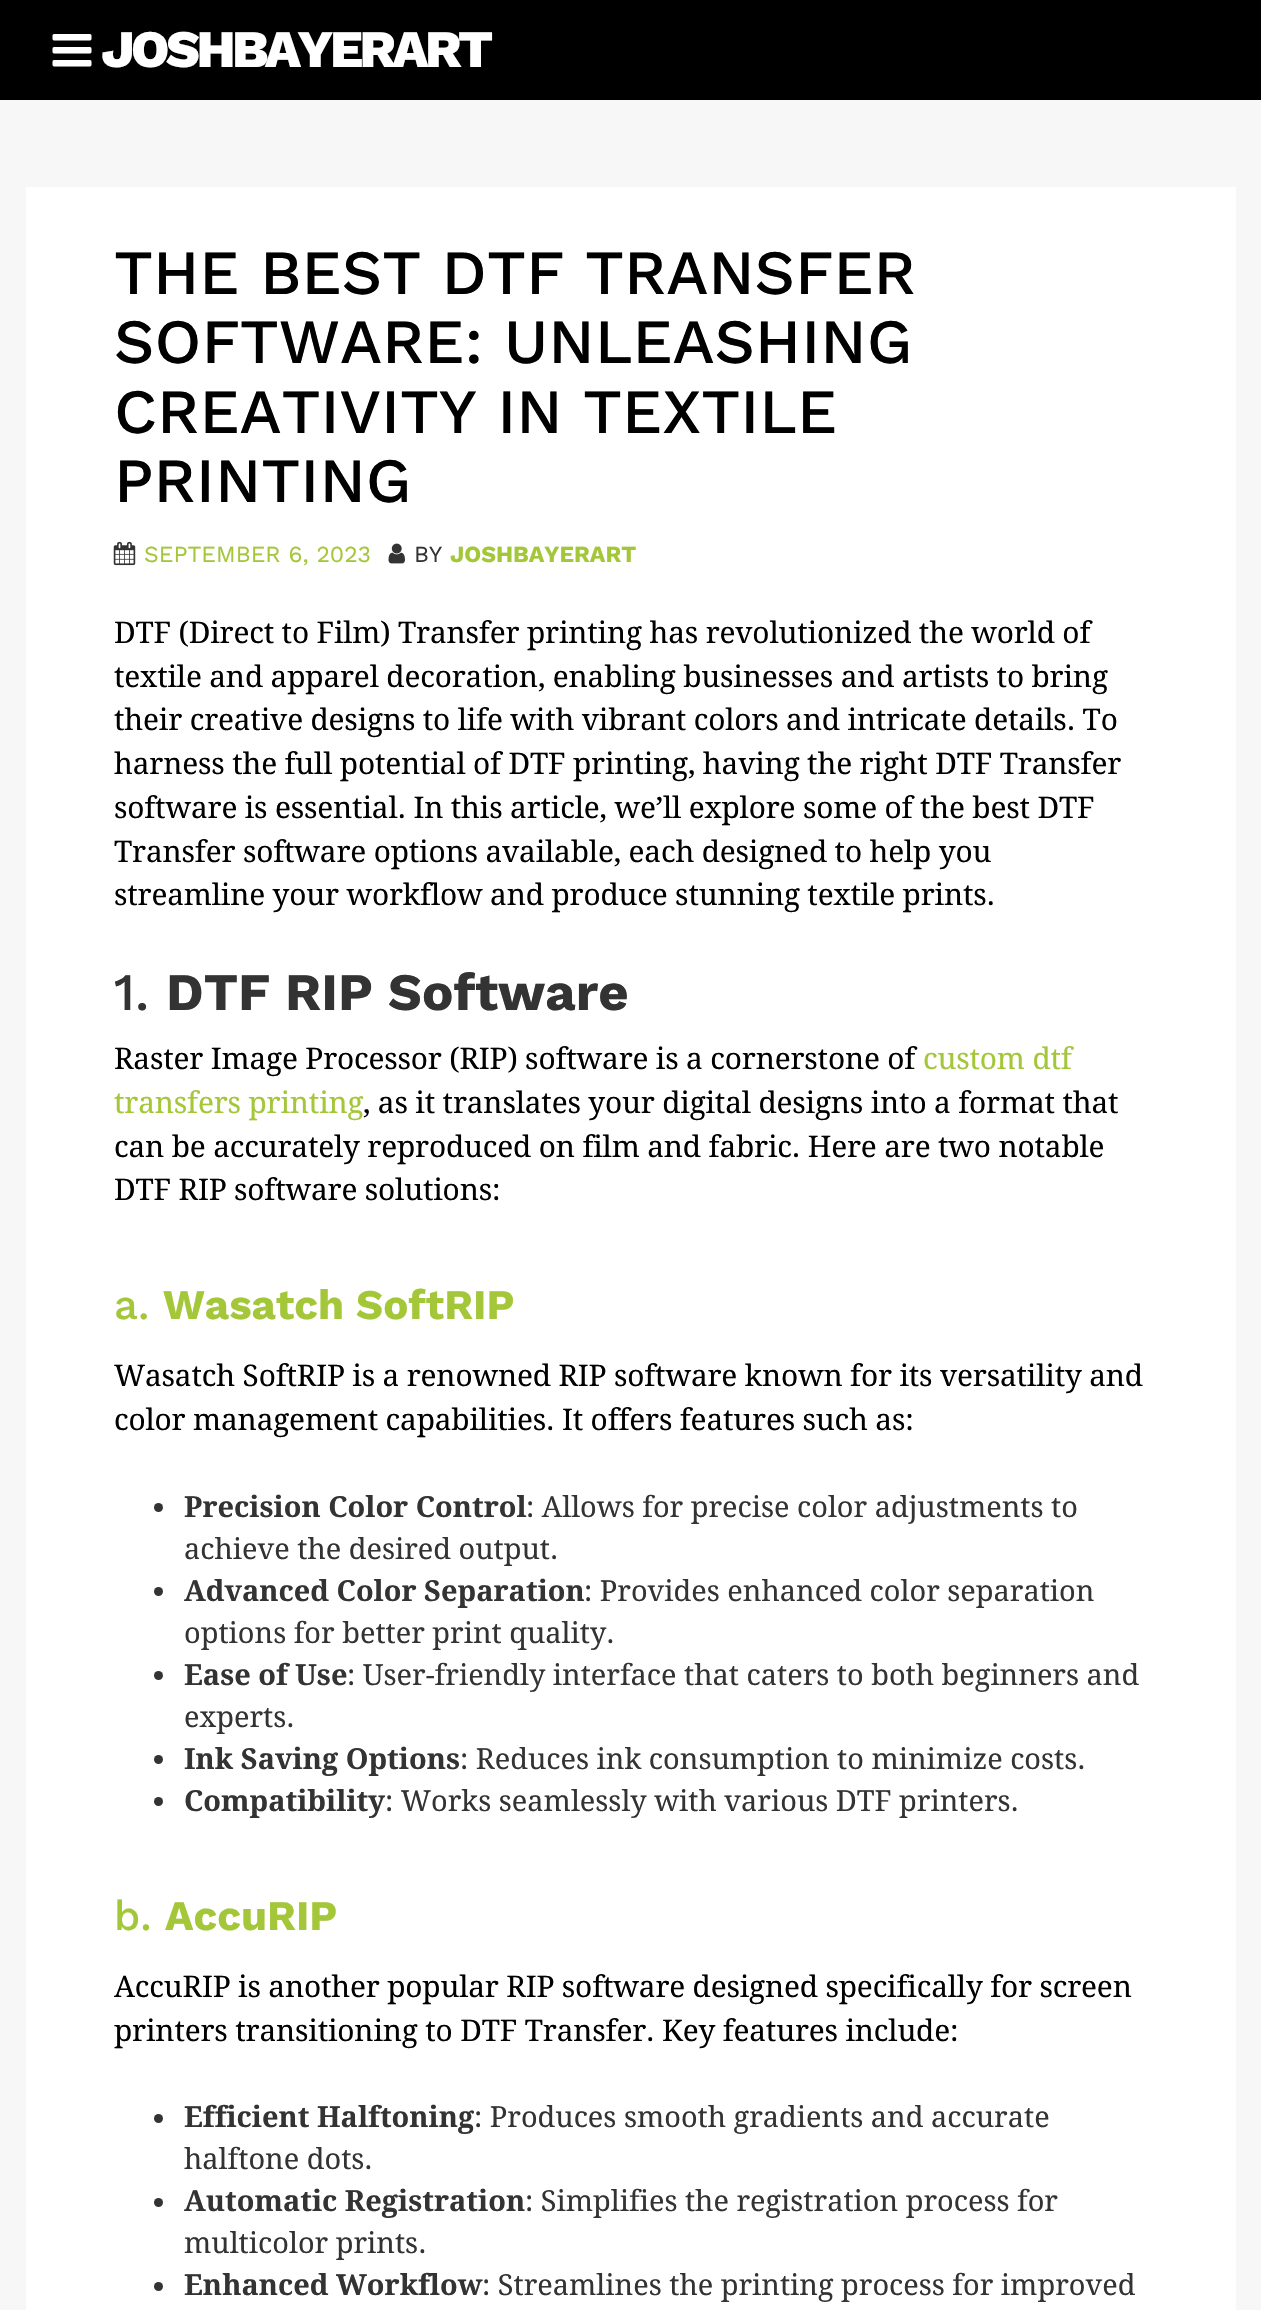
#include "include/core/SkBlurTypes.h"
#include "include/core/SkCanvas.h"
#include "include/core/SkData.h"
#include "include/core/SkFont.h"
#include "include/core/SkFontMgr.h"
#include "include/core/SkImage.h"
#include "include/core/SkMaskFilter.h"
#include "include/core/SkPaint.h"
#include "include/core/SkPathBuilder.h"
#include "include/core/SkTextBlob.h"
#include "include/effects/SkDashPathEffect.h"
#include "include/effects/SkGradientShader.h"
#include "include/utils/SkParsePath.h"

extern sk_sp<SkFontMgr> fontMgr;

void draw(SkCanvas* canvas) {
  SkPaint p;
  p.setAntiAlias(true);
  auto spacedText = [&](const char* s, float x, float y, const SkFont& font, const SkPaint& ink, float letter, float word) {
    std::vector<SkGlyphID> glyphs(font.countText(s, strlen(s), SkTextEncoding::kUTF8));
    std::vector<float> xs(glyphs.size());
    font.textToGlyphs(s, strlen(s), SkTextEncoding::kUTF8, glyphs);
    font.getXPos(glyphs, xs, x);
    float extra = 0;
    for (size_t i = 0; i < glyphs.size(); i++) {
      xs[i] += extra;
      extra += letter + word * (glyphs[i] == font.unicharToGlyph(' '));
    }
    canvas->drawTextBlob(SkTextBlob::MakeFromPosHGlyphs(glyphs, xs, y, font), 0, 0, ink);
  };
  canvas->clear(SkColorSetRGB(247, 247, 247));
  p.setColor(SK_ColorBLACK);
  canvas->drawRect(SkRect::MakeLTRB(0, 0, 1261, 100), p);
  canvas->drawImageRect(SkImages::DeferredFromEncodedData(SkData::MakeFromFileName("images/1.png")), SkRect::MakeLTRB(52, 34, 92, 67), SkSamplingOptions());
  p.setColor(SK_ColorWHITE);
  canvas->drawRect(SkRect::MakeLTRB(26, 187, 1236, 2310), p);
  canvas->drawImageRect(SkImages::DeferredFromEncodedData(SkData::MakeFromFileName("images/2.png")), SkRect::MakeLTRB(113, 541, 136, 566), SkSamplingOptions());
  canvas->drawImageRect(SkImages::DeferredFromEncodedData(SkData::MakeFromFileName("images/3.png")), SkRect::MakeLTRB(388, 543, 405, 564), SkSamplingOptions());
  p.setColor(SkColorSetRGB(51, 51, 51));
  canvas->drawCircle(158.5f, 1507.5f, 4.5f, p);
  canvas->drawCircle(158.5f, 1591.5f, 4.5f, p);
  canvas->drawCircle(158.5f, 1675.5f, 4.5f, p);
  canvas->drawCircle(158.5f, 1759.5f, 4.5f, p);
  canvas->drawCircle(158.5f, 1801.5f, 4.5f, p);
  canvas->drawCircle(158.5f, 2118.5f, 4.5f, p);
  canvas->drawCircle(158.5f, 2202.5f, 4.5f, p);
  canvas->drawCircle(158.5f, 2286.5f, 4.5f, p);
  SkFont font1(fontMgr->matchFamilyStyle("Work Sans", SkFontStyle(800, SkFontStyle::kNormal_Width, SkFontStyle::kUpright_Slant)), 52.5f);
  font1.setSubpixel(true);
  p.setColor(SK_ColorWHITE);
  spacedText("JOSHBAYERART", 101, 67, font1, p, -3.5f, 0);
  SkFont font2(fontMgr->matchFamilyStyle("Work Sans", SkFontStyle(500, SkFontStyle::kNormal_Width, SkFontStyle::kUpright_Slant)), 63);
  font2.setSubpixel(true);
  p.setColor(SK_ColorBLACK);
  canvas->drawString("THE BEST DTF TRANSFER", 114, 294, font2, p);
  canvas->drawString("SOFTWARE: UNLEASHING", 114, 363, font2, p);
  canvas->drawString("CREATIVITY IN TEXTILE", 114, 433, font2, p);
  canvas->drawString("PRINTING", 114, 502, font2, p);
  SkFont font3(fontMgr->matchFamilyStyle("Work Sans", SkFontStyle::Normal()), 23);
  font3.setSubpixel(true);
  p.setColor(SkColorSetRGB(164, 198, 57));
  canvas->drawString("SEPTEMBER 6, 2023", 144, 562, font3, p);
  p.setColor(SkColorSetRGB(51, 51, 51));
  canvas->drawString("BY", 414, 562, font3, p);
  SkFont font4(fontMgr->matchFamilyStyle("Work Sans", SkFontStyle::Bold()), 23);
  font4.setSubpixel(true);
  p.setColor(SkColorSetRGB(164, 198, 57));
  canvas->drawString("JOSHBAYERART", 450, 562, font4, p);
  SkFont font5(fontMgr->matchFamilyStyle("Droid Serif", SkFontStyle::Normal()), 29.75f);
  font5.setSubpixel(true);
  p.setColor(SK_ColorBLACK);
  spacedText("DTF (Direct to Film) Transfer printing has revolutionized the world of", 114, 643, font5, p, -0.15f, 0);
  spacedText("textile and apparel decoration, enabling businesses and artists to bring", 114, 687, font5, p, -0.15f, 0);
  spacedText("their creative designs to life with vibrant colors and intricate details. To", 114, 730, font5, p, -0.15f, 0);
  spacedText("harness the full potential of DTF printing, having the right DTF Transfer", 114, 774, font5, p, -0.15f, 0);
  spacedText("software is essential. In this article, we’ll explore some of the best DTF", 114, 818, font5, p, -0.15f, 0);
  spacedText("Transfer software options available, each designed to help you", 114, 862, font5, p, -0.15f, 0);
  spacedText("streamline your workflow and produce stunning textile prints.", 114, 905, font5, p, -0.15f, 0);
  SkFont font6(fontMgr->matchFamilyStyle("Work Sans", SkFontStyle(500, SkFontStyle::kNormal_Width, SkFontStyle::kUpright_Slant)), 52.5f);
  font6.setSubpixel(true);
  p.setColor(SkColorSetRGB(51, 51, 51));
  canvas->drawString("1.", 114, 1010, font6, p);
  SkFont font7(fontMgr->matchFamilyStyle("Work Sans", SkFontStyle::Bold()), 52.5f);
  font7.setSubpixel(true);
  canvas->drawString("DTF RIP Software", 166, 1010, font7, p);
  p.setColor(SK_ColorBLACK);
  spacedText("Raster Image Processor (RIP) software is a cornerstone of", 114, 1069, font5, p, -0.15f, 0);
  p.setColor(SkColorSetRGB(164, 198, 57));
  spacedText("custom dtf", 923, 1069, font5, p, -0.15f, 0);
  spacedText("transfers printing", 114, 1113, font5, p, -0.15f, 0);
  p.setColor(SK_ColorBLACK);
  spacedText(", as it translates your digital designs into a format that", 363, 1113, font5, p, -0.15f, 0);
  spacedText("can be accurately reproduced on film and fabric. Here are two notable", 114, 1157, font5, p, -0.15f, 0);
  spacedText("DTF RIP software solutions:", 114, 1200, font5, p, -0.15f, 0);
  SkFont font8(fontMgr->matchFamilyStyle("Work Sans", SkFontStyle(500, SkFontStyle::kNormal_Width, SkFontStyle::kUpright_Slant)), 42);
  font8.setSubpixel(true);
  p.setColor(SkColorSetRGB(164, 198, 57));
  canvas->drawString("a.", 114, 1319, font8, p);
  SkFont font9(fontMgr->matchFamilyStyle("Work Sans", SkFontStyle::Bold()), 42);
  font9.setSubpixel(true);
  canvas->drawString("Wasatch SoftRIP", 163, 1319, font9, p);
  p.setColor(SK_ColorBLACK);
  spacedText("Wasatch SoftRIP is a renowned RIP software known for its versatility and", 114, 1386, font5, p, -0.15f, 0);
  spacedText("color management capabilities. It offers features such as:", 114, 1430, font5, p, -0.15f, 0);
  SkFont font10(fontMgr->matchFamilyStyle("Droid Serif", SkFontStyle::Bold()), 28.9f);
  font10.setSubpixel(true);
  p.setColor(SkColorSetRGB(51, 51, 51));
  canvas->drawString("Precision Color Control", 184, 1517, font10, p);
  SkFont font11(fontMgr->matchFamilyStyle("Droid Serif", SkFontStyle::Normal()), 28.9f);
  font11.setSubpixel(true);
  canvas->drawString(": Allows for precise color adjustments to", 526, 1517, font11, p);
  canvas->drawString("achieve the desired output.", 184, 1559, font11, p);
  canvas->drawString("Advanced Color Separation", 184, 1601, font10, p);
  canvas->drawString(": Provides enhanced color separation", 584, 1601, font11, p);
  canvas->drawString("options for better print quality.", 184, 1643, font11, p);
  canvas->drawString("Ease of Use", 184, 1685, font10, p);
  canvas->drawString(": User-friendly interface that caters to both beginners and", 347, 1685, font11, p);
  canvas->drawString("experts.", 184, 1727, font11, p);
  canvas->drawString("Ink Saving Options", 184, 1769, font10, p);
  canvas->drawString(": Reduces ink consumption to minimize costs.", 460, 1769, font11, p);
  canvas->drawString("Compatibility", 184, 1811, font10, p);
  canvas->drawString(": Works seamlessly with various DTF printers.", 385, 1811, font11, p);
  p.setColor(SkColorSetRGB(164, 198, 57));
  canvas->drawString("b.", 114, 1930, font8, p);
  canvas->drawString("AccuRIP", 165, 1930, font9, p);
  p.setColor(SK_ColorBLACK);
  spacedText("AccuRIP is another popular RIP software designed specifically for screen", 114, 1997, font5, p, -0.15f, 0);
  spacedText("printers transitioning to DTF Transfer. Key features include:", 114, 2041, font5, p, -0.15f, 0);
  p.setColor(SkColorSetRGB(51, 51, 51));
  canvas->drawString("Efficient Halftoning", 184, 2127, font10, p);
  canvas->drawString(": Produces smooth gradients and accurate", 474, 2127, font11, p);
  canvas->drawString("halftone dots.", 184, 2169, font11, p);
  canvas->drawString("Automatic Registration", 184, 2211, font10, p);
  canvas->drawString(": Simplifies the registration process for", 525, 2211, font11, p);
  canvas->drawString("multicolor prints.", 184, 2253, font11, p);
  canvas->drawString("Enhanced Workflow", 184, 2295, font10, p);
  canvas->drawString(": Streamlines the printing process for improved", 482, 2295, font11, p);
}
